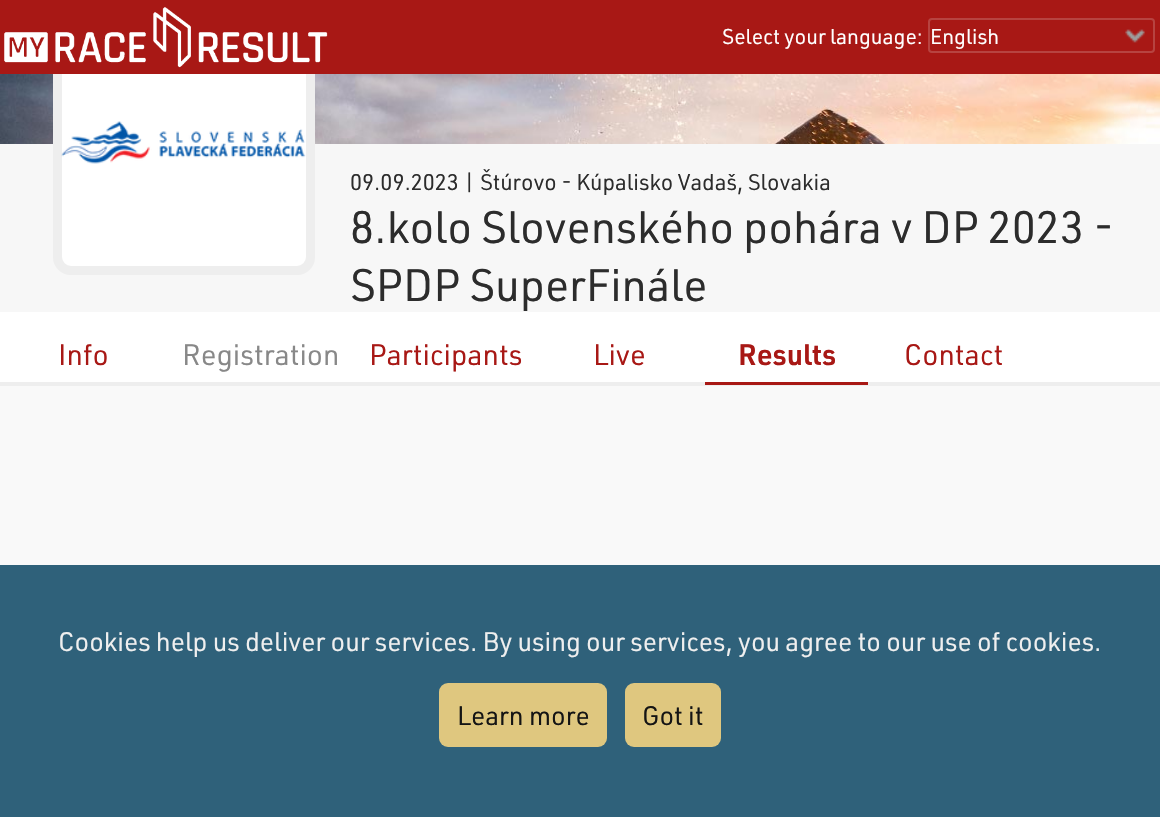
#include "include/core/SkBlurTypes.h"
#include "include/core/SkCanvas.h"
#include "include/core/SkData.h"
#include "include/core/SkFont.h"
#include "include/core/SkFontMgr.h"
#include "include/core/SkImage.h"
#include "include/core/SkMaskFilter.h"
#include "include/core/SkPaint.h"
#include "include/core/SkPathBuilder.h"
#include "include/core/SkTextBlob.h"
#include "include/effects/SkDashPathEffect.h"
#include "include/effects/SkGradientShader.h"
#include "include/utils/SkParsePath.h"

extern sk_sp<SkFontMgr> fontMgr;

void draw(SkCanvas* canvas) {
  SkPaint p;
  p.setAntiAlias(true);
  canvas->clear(SK_ColorWHITE);
  canvas->drawImageRect(SkImages::DeferredFromEncodedData(SkData::MakeFromFileName("images/3.png")), SkRect::MakeLTRB(0, 74, 1160, 144), SkSamplingOptions());
  p.setColor(SkColorSetRGB(247, 247, 247));
  canvas->drawRect(SkRect::MakeLTRB(0, 144, 1160, 312), p);
  p.setColor(SK_ColorWHITE);
  canvas->drawRoundRect(SkRect::MakeLTRB(57.5f, 16.5f, 310.5f, 270.5f), 13.5f, 13.5f, p);
  p.setStyle(SkPaint::kStroke_Style);
  p.setStrokeWidth(9);
  p.setColor(SkColorSetRGB(238, 238, 238));
  canvas->drawRoundRect(SkRect::MakeLTRB(57.5f, 16.5f, 310.5f, 270.5f), 13.5f, 13.5f, p);
  p.setStyle(SkPaint::kFill_Style);
  p.setColor(SkColorSetRGB(168, 24, 21));
  canvas->drawRect(SkRect::MakeLTRB(0, 0, 1160, 74), p);
  canvas->drawImageRect(SkImages::DeferredFromEncodedData(SkData::MakeFromFileName("images/1.png")), SkRect::MakeLTRB(4, 7, 328, 68), SkSamplingOptions());
  canvas->drawImageRect(SkImages::DeferredFromEncodedData(SkData::MakeFromFileName("images/2.png")), SkRect::MakeLTRB(1125, 29, 1145, 43), SkSamplingOptions());
  p.setStyle(SkPaint::kStroke_Style);
  p.setStrokeWidth(2);
  p.setColor(SkColorSetRGB(183, 67, 64));
  canvas->drawRoundRect(SkRect::MakeLTRB(929, 19, 1154, 52), 3, 3, p);
  canvas->drawImageRect(SkImages::DeferredFromEncodedData(SkData::MakeFromFileName("images/4.png")), SkRect::MakeLTRB(61, 121, 306, 164), SkSamplingOptions());
  p.setStyle(SkPaint::kFill_Style);
  p.setColor(SkColorSetRGB(238, 238, 238));
  canvas->drawRect(SkRect::MakeLTRB(0, 382, 1160, 386), p);
  p.setColor(SkColorSetRGB(168, 24, 21));
  canvas->drawRect(SkRect::MakeLTRB(705, 382, 868, 385), p);
  p.setColor(SkColorSetRGB(249, 249, 249));
  canvas->drawRect(SkRect::MakeLTRB(0, 386, 1160, 565), p);
  p.setColor(SkColorSetRGB(47, 97, 122));
  canvas->drawRect(SkRect::MakeLTRB(0, 565, 1160, 817), p);
  p.setColor(SkColorSetRGB(223, 199, 127));
  canvas->drawRoundRect(SkRect::MakeLTRB(439, 683, 607, 747), 9, 9, p);
  canvas->drawRoundRect(SkRect::MakeLTRB(625, 683, 721, 747), 9, 9, p);
  SkFont font1(fontMgr->matchFamilyStyle("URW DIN", SkFontStyle::Normal()), 21);
  font1.setSubpixel(true);
  p.setColor(SK_ColorWHITE);
  canvas->drawString("Select your language:", 722, 44, font1, p);
  canvas->drawString("English", 930, 44, font1, p);
  SkFont font2(fontMgr->matchFamilyStyle("URW DIN", SkFontStyle::Normal()), 22.3f);
  font2.setSubpixel(true);
  p.setColor(SkColorSetRGB(44, 44, 44));
  canvas->drawString("09.09.2023 | Štúrovo - Kúpalisko Vadaš, Slovakia", 350, 190, font2, p);
  SkFont font3(fontMgr->matchFamilyStyle("URW DIN", SkFontStyle::Normal()), 44.6f);
  font3.setSubpixel(true);
  canvas->drawString("8.kolo Slovenského pohára v DP 2023 -", 350, 243, font3, p);
  canvas->drawString("SPDP SuperFinále", 350, 301, font3, p);
  SkFont font4(fontMgr->matchFamilyStyle("URW DIN", SkFontStyle::Normal()), 29);
  font4.setSubpixel(true);
  p.setColor(SkColorSetRGB(168, 24, 21));
  canvas->drawString("Info", 58, 365, font4, p);
  p.setColor(SkColorSetRGB(136, 136, 136));
  canvas->drawString("Registration", 182, 365, font4, p);
  p.setColor(SkColorSetRGB(168, 24, 21));
  canvas->drawString("Participants", 369, 365, font4, p);
  canvas->drawString("Live", 593, 365, font4, p);
  SkFont font5(fontMgr->matchFamilyStyle("URW DIN", SkFontStyle(600, SkFontStyle::kNormal_Width, SkFontStyle::kUpright_Slant)), 29);
  font5.setSubpixel(true);
  canvas->drawString("Results", 738, 365, font5, p);
  canvas->drawString("Contact", 904, 365, font4, p);
  SkFont font6(fontMgr->matchFamilyStyle("URW DIN", SkFontStyle::Normal()), 26.25f);
  font6.setSubpixel(true);
  p.setColor(SkColorSetRGB(239, 239, 239));
  canvas->drawString("Cookies help us deliver our services. By using our services, you agree to our use of cookies.", 58, 651, font6, p);
  p.setColor(SkColorSetRGB(20, 20, 20));
  canvas->drawString("Learn more", 457, 725, font6, p);
  canvas->drawString("Got it", 642, 725, font6, p);
}
